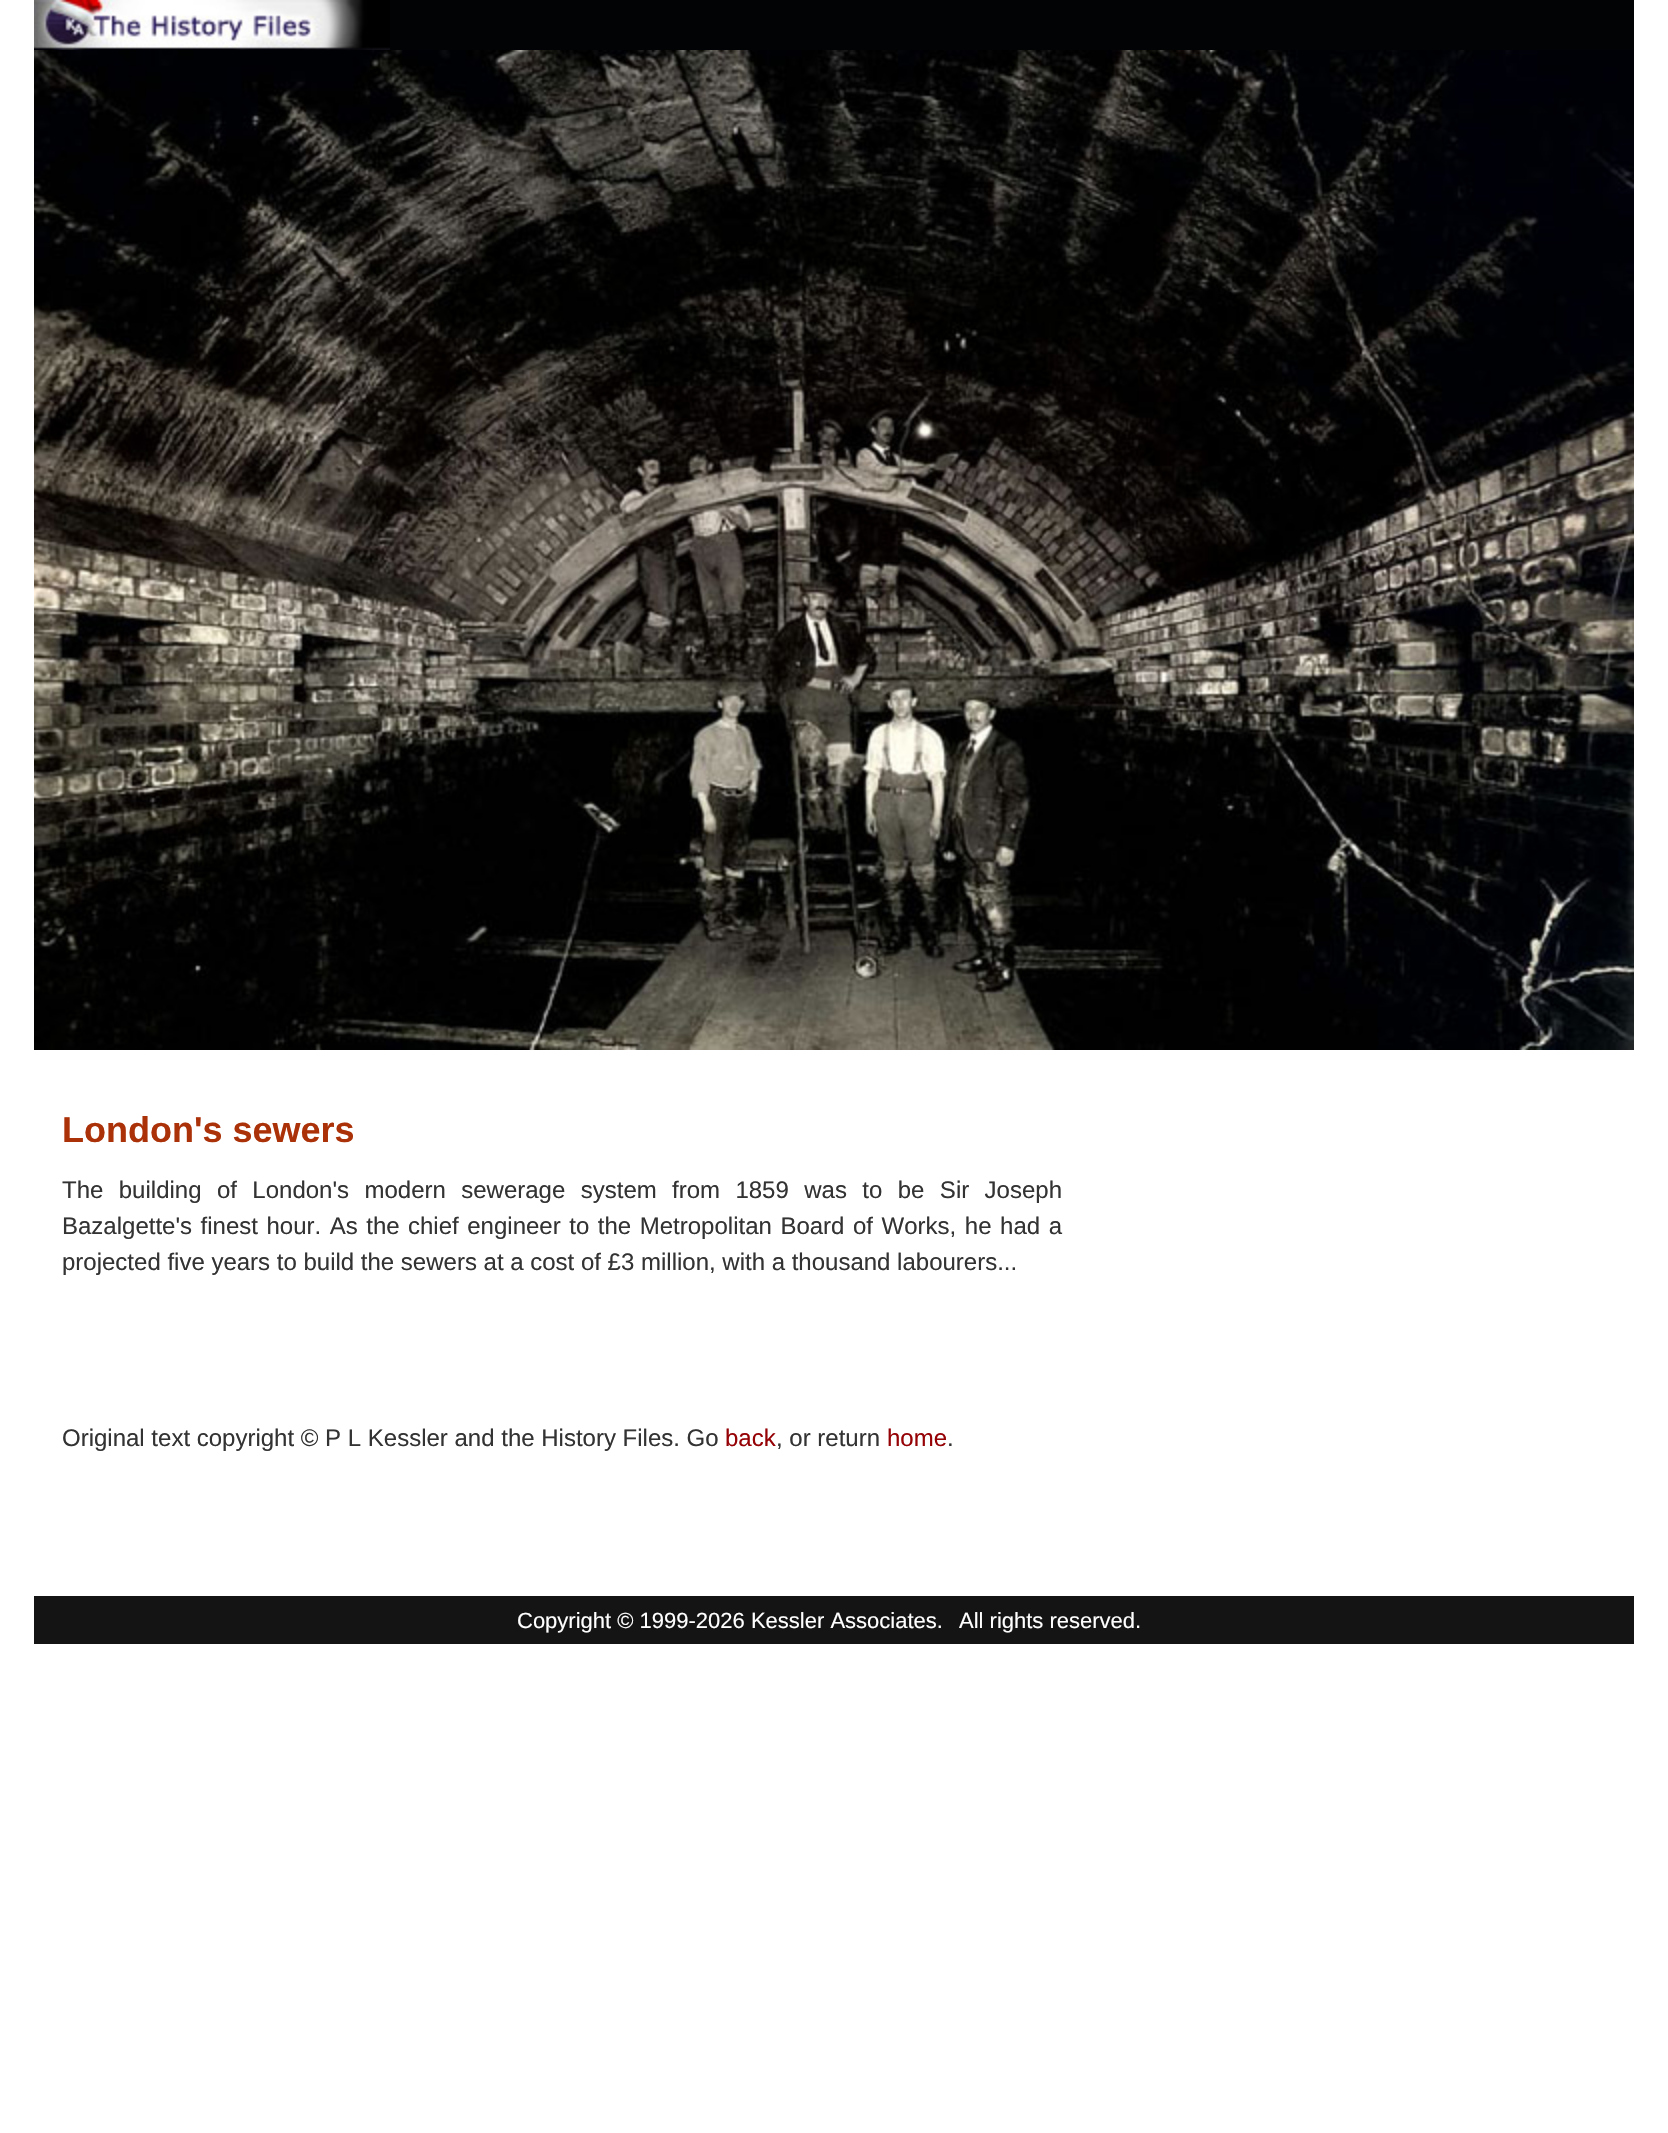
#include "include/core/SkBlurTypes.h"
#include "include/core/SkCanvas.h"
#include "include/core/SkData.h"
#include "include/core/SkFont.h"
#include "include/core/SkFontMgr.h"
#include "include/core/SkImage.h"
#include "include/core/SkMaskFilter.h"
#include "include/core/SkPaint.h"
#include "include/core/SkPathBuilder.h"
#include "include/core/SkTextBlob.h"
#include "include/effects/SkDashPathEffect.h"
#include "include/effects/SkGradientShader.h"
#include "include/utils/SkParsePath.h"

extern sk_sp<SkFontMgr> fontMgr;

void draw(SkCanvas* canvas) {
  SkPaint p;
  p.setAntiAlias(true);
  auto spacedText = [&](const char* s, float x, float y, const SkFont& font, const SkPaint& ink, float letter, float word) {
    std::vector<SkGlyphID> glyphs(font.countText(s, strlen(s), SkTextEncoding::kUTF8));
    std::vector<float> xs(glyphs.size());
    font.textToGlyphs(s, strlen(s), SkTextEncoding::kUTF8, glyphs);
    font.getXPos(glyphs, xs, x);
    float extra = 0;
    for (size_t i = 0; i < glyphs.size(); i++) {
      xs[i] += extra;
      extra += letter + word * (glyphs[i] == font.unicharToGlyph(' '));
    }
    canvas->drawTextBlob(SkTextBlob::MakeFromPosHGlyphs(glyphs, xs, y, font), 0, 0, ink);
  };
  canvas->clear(SK_ColorWHITE);
  p.setColor(SkColorSetRGB(2, 3, 4));
  canvas->drawRect(SkRect::MakeLTRB(390, 0, 1634, 50), p);
  canvas->drawImageRect(SkImages::DeferredFromEncodedData(SkData::MakeFromFileName("images/1.png")), SkRect::MakeLTRB(34, 0, 390, 50), SkSamplingOptions());
  canvas->drawImageRect(SkImages::DeferredFromEncodedData(SkData::MakeFromFileName("images/2.png")), SkRect::MakeLTRB(34, 50, 1634, 1050), SkSamplingOptions());
  p.setColor(SkColorSetRGB(20, 20, 20));
  canvas->drawRect(SkRect::MakeLTRB(34, 1596, 1634, 1644), p);
  SkFont font1(fontMgr->matchFamilyStyle("Liberation Sans", SkFontStyle::Bold()), 36);
  font1.setSubpixel(true);
  p.setColor(SkColorSetRGB(171, 49, 8));
  canvas->drawString("London's sewers", 62, 1142, font1, p);
  SkFont font2(fontMgr->matchFamilyStyle("Liberation Sans", SkFontStyle::Normal()), 24);
  font2.setSubpixel(true);
  p.setColor(SkColorSetRGB(51, 51, 51));
  spacedText("The building of London's modern sewerage system", 62, 1198, font2, p, 0, 8.75f);
  spacedText("from 1859 was to be Sir Joseph", 672, 1198, font2, p, 0, 8.75f);
  spacedText("Bazalgette's finest hour. As the", 62, 1234, font2, p, 0, 1.9f);
  spacedText("chief engineer to the Metropolitan Board of Works, he had a", 408, 1234, font2, p, 0, 1.9f);
  canvas->drawString("projected five years to build the sewers at a cost of £3 million, with a thousand labourers...", 62, 1270, font2, p);
  canvas->drawString("Original text copyright © P L Kessler and the History Files. Go", 62, 1446, font2, p);
  p.setColor(SkColorSetRGB(150, 3, 7));
  canvas->drawString("back", 725, 1446, font2, p);
  p.setColor(SkColorSetRGB(51, 51, 51));
  canvas->drawString(", or return", 776, 1446, font2, p);
  p.setColor(SkColorSetRGB(150, 3, 7));
  canvas->drawString("home", 887, 1446, font2, p);
  p.setColor(SkColorSetRGB(51, 51, 51));
  canvas->drawString(".", 947, 1446, font2, p);
  SkFont font3(fontMgr->matchFamilyStyle("Liberation Sans", SkFontStyle::Normal()), 22);
  font3.setSubpixel(true);
  p.setColor(SK_ColorWHITE);
  canvas->drawString("Copyright © 1999-2026 Kessler Associates.", 517, 1628, font3, p);
  canvas->drawString("All rights reserved.", 959, 1628, font3, p);
}
